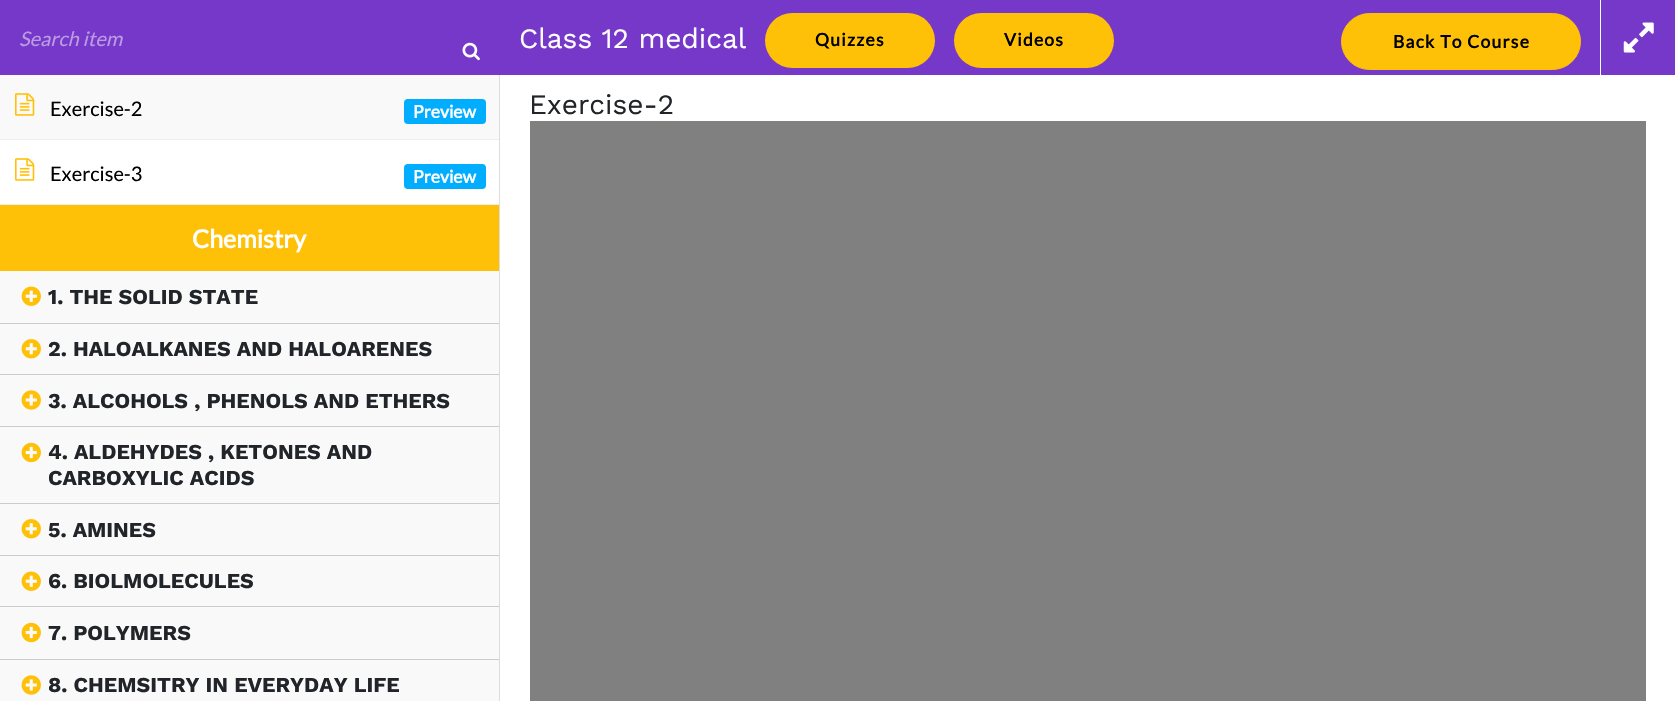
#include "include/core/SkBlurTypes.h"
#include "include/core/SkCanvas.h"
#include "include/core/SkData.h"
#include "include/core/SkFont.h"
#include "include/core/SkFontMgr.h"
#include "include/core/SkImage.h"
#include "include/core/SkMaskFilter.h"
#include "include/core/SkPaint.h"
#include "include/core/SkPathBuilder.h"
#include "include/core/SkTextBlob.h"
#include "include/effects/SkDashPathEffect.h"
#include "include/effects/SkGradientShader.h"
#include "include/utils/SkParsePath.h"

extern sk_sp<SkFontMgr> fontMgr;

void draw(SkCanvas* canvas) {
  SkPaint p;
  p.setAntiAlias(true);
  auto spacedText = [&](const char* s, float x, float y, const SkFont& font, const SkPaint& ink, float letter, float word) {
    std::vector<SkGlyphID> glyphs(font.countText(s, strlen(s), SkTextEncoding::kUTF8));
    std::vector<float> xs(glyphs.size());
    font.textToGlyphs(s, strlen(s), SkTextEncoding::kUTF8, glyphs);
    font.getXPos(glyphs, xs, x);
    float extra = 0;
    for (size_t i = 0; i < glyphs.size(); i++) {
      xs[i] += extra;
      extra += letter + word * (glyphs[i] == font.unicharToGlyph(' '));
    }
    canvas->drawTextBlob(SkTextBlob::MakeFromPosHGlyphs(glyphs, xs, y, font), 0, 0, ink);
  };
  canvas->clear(SK_ColorWHITE);
  p.setColor(SkColorSetRGB(118, 56, 200));
  canvas->drawRect(SkRect::MakeLTRB(0, 0, 1675, 75), p);
  canvas->drawImageRect(SkImages::DeferredFromEncodedData(SkData::MakeFromFileName("images/1.png")), SkRect::MakeLTRB(462, 42, 480, 61), SkSamplingOptions());
  p.setColor(SkColorSetRGB(255, 193, 7));
  canvas->drawRoundRect(SkRect::MakeLTRB(765, 13, 935, 68), 27.5f, 27.5f, p);
  canvas->drawRoundRect(SkRect::MakeLTRB(954, 13, 1114, 68), 27.5f, 27.5f, p);
  canvas->drawRoundRect(SkRect::MakeLTRB(1341.5f, 13.5f, 1580.5f, 69.5f), 28, 28, p);
  p.setStyle(SkPaint::kStroke_Style);
  p.setStrokeWidth(1);
  canvas->drawRoundRect(SkRect::MakeLTRB(1341.5f, 13.5f, 1580.5f, 69.5f), 28, 28, p);
  p.setStyle(SkPaint::kFill_Style);
  p.setColor(SK_ColorWHITE);
  canvas->drawRect(SkRect::MakeLTRB(1600, 0, 1601, 75), p);
  canvas->drawImageRect(SkImages::DeferredFromEncodedData(SkData::MakeFromFileName("images/2.png")), SkRect::MakeLTRB(1623, 22, 1654, 53), SkSamplingOptions());
  p.setColor(SkColorSetRGB(128, 128, 128));
  canvas->drawRect(SkRect::MakeLTRB(530, 121, 1646, 701), p);
  p.setColor(SkColorSetRGB(221, 221, 221));
  canvas->drawRect(SkRect::MakeLTRB(499, 75, 500, 701), p);
  p.setColor(SkColorSetRGB(249, 249, 249));
  canvas->drawRect(SkRect::MakeLTRB(0, 75, 499, 139), p);
  p.setColor(SkColorSetRGB(238, 238, 238));
  canvas->drawRect(SkRect::MakeLTRB(0, 139, 499, 140), p);
  canvas->drawImageRect(SkImages::DeferredFromEncodedData(SkData::MakeFromFileName("images/3.png")), SkRect::MakeLTRB(15, 93, 35, 116), SkSamplingOptions());
  p.setColor(SkColorSetRGB(0, 173, 255));
  canvas->drawRoundRect(SkRect::MakeLTRB(404, 99, 486, 124), 4, 4, p);
  p.setColor(SkColorSetRGB(238, 238, 238));
  canvas->drawRect(SkRect::MakeLTRB(0, 204, 499, 205), p);
  canvas->drawImageRect(SkImages::DeferredFromEncodedData(SkData::MakeFromFileName("images/4.png")), SkRect::MakeLTRB(15, 158, 35, 181), SkSamplingOptions());
  p.setColor(SkColorSetRGB(0, 173, 255));
  canvas->drawRoundRect(SkRect::MakeLTRB(404, 164, 486, 189), 4, 4, p);
  p.setColor(SkColorSetRGB(255, 193, 7));
  canvas->drawRect(SkRect::MakeLTRB(0, 205, 499, 271), p);
  p.setColor(SkColorSetRGB(249, 249, 249));
  canvas->drawRect(SkRect::MakeLTRB(0, 271, 499, 323), p);
  p.setColor(SkColorSetRGB(204, 204, 204));
  canvas->drawRect(SkRect::MakeLTRB(0, 323, 499, 324), p);
  canvas->drawImageRect(SkImages::DeferredFromEncodedData(SkData::MakeFromFileName("images/5.png")), SkRect::MakeLTRB(21, 286, 41, 306), SkSamplingOptions());
  p.setColor(SkColorSetRGB(249, 249, 249));
  canvas->drawRect(SkRect::MakeLTRB(0, 324, 499, 374), p);
  p.setColor(SkColorSetRGB(204, 204, 204));
  canvas->drawRect(SkRect::MakeLTRB(0, 374, 499, 375), p);
  canvas->drawImageRect(SkImages::DeferredFromEncodedData(SkData::MakeFromFileName("images/6.png")), SkRect::MakeLTRB(21, 339, 41, 359), SkSamplingOptions());
  p.setColor(SkColorSetRGB(249, 249, 249));
  canvas->drawRect(SkRect::MakeLTRB(0, 375, 499, 503), p);
  p.setColor(SkColorSetRGB(204, 204, 204));
  canvas->drawRect(SkRect::MakeLTRB(0, 426, 499, 427), p);
  canvas->drawImageRect(SkImages::DeferredFromEncodedData(SkData::MakeFromFileName("images/7.png")), SkRect::MakeLTRB(21, 390, 41, 410), SkSamplingOptions());
  canvas->drawRect(SkRect::MakeLTRB(0, 503, 499, 504), p);
  canvas->drawImageRect(SkImages::DeferredFromEncodedData(SkData::MakeFromFileName("images/8.png")), SkRect::MakeLTRB(21, 442, 41, 463), SkSamplingOptions());
  p.setColor(SkColorSetRGB(249, 249, 249));
  canvas->drawRect(SkRect::MakeLTRB(0, 504, 499, 555), p);
  p.setColor(SkColorSetRGB(204, 204, 204));
  canvas->drawRect(SkRect::MakeLTRB(0, 555, 499, 556), p);
  canvas->drawImageRect(SkImages::DeferredFromEncodedData(SkData::MakeFromFileName("images/6.png")), SkRect::MakeLTRB(21, 519, 41, 539), SkSamplingOptions());
  p.setColor(SkColorSetRGB(249, 249, 249));
  canvas->drawRect(SkRect::MakeLTRB(0, 556, 499, 659), p);
  p.setColor(SkColorSetRGB(204, 204, 204));
  canvas->drawRect(SkRect::MakeLTRB(0, 606, 499, 607), p);
  canvas->drawImageRect(SkImages::DeferredFromEncodedData(SkData::MakeFromFileName("images/5.png")), SkRect::MakeLTRB(21, 571, 41, 591), SkSamplingOptions());
  canvas->drawRect(SkRect::MakeLTRB(0, 659, 499, 660), p);
  canvas->drawImageRect(SkImages::DeferredFromEncodedData(SkData::MakeFromFileName("images/8.png")), SkRect::MakeLTRB(21, 622, 41, 643), SkSamplingOptions());
  p.setColor(SkColorSetRGB(249, 249, 249));
  canvas->drawRect(SkRect::MakeLTRB(0, 660, 499, 701), p);
  canvas->drawImageRect(SkImages::DeferredFromEncodedData(SkData::MakeFromFileName("images/7.png")), SkRect::MakeLTRB(21, 675, 41, 695), SkSamplingOptions());
  SkFont font1(fontMgr->matchFamilyStyle("Lato", SkFontStyle::Italic()), 20);
  font1.setSubpixel(true);
  p.setColor(SkColorSetRGB(187, 156, 228));
  canvas->drawString("Search item", 19, 46, font1, p);
  SkFont font2(fontMgr->matchFamilyStyle("Work Sans", SkFontStyle::Normal()), 28);
  font2.setSubpixel(true);
  p.setColor(SK_ColorWHITE);
  canvas->drawString("Class 12 medical", 519, 48, font2, p);
  SkFont font3(fontMgr->matchFamilyStyle("Lato", SkFontStyle::Bold()), 17.5f);
  font3.setSubpixel(true);
  p.setColor(SK_ColorBLACK);
  spacedText("Quizzes", 815, 46, font3, p, 1.25f, 0);
  spacedText("Videos", 1004, 46, font3, p, 1.25f, 0);
  spacedText("Back To Course", 1393, 48, font3, p, 1.25f, 0);
  p.setColor(SkColorSetRGB(33, 37, 41));
  canvas->drawString("Exercise-2", 529, 114, font2, p);
  SkFont font4(fontMgr->matchFamilyStyle("Lato", SkFontStyle::Normal()), 20);
  font4.setSubpixel(true);
  p.setColor(SK_ColorBLACK);
  canvas->drawString("Exercise-2", 50, 116, font4, p);
  p.setColor(SK_ColorWHITE);
  canvas->drawString("Preview", 413, 118, font3, p);
  p.setColor(SK_ColorBLACK);
  canvas->drawString("Exercise-3", 50, 181, font4, p);
  p.setColor(SK_ColorWHITE);
  canvas->drawString("Preview", 413, 183, font3, p);
  SkFont font5(fontMgr->matchFamilyStyle("Lato", SkFontStyle::Bold()), 25);
  font5.setSubpixel(true);
  canvas->drawString("Chemistry", 192, 248, font5, p);
  SkFont font6(fontMgr->matchFamilyStyle("Work Sans", SkFontStyle::Bold()), 21.25f);
  font6.setSubpixel(true);
  p.setColor(SkColorSetRGB(33, 37, 41));
  canvas->drawString("1. THE SOLID STATE", 48, 304, font6, p);
  canvas->drawString("2. HALOALKANES AND HALOARENES", 48, 356, font6, p);
  canvas->drawString("3. ALCOHOLS , PHENOLS AND ETHERS", 48, 408, font6, p);
  canvas->drawString("4. ALDEHYDES , KETONES AND", 48, 459, font6, p);
  canvas->drawString("CARBOXYLIC ACIDS", 48, 485, font6, p);
  canvas->drawString("5. AMINES", 48, 537, font6, p);
  canvas->drawString("6. BIOLMOLECULES", 48, 588, font6, p);
  canvas->drawString("7. POLYMERS", 48, 640, font6, p);
  canvas->drawString("8. CHEMSITRY IN EVERYDAY LIFE", 48, 692, font6, p);
}
